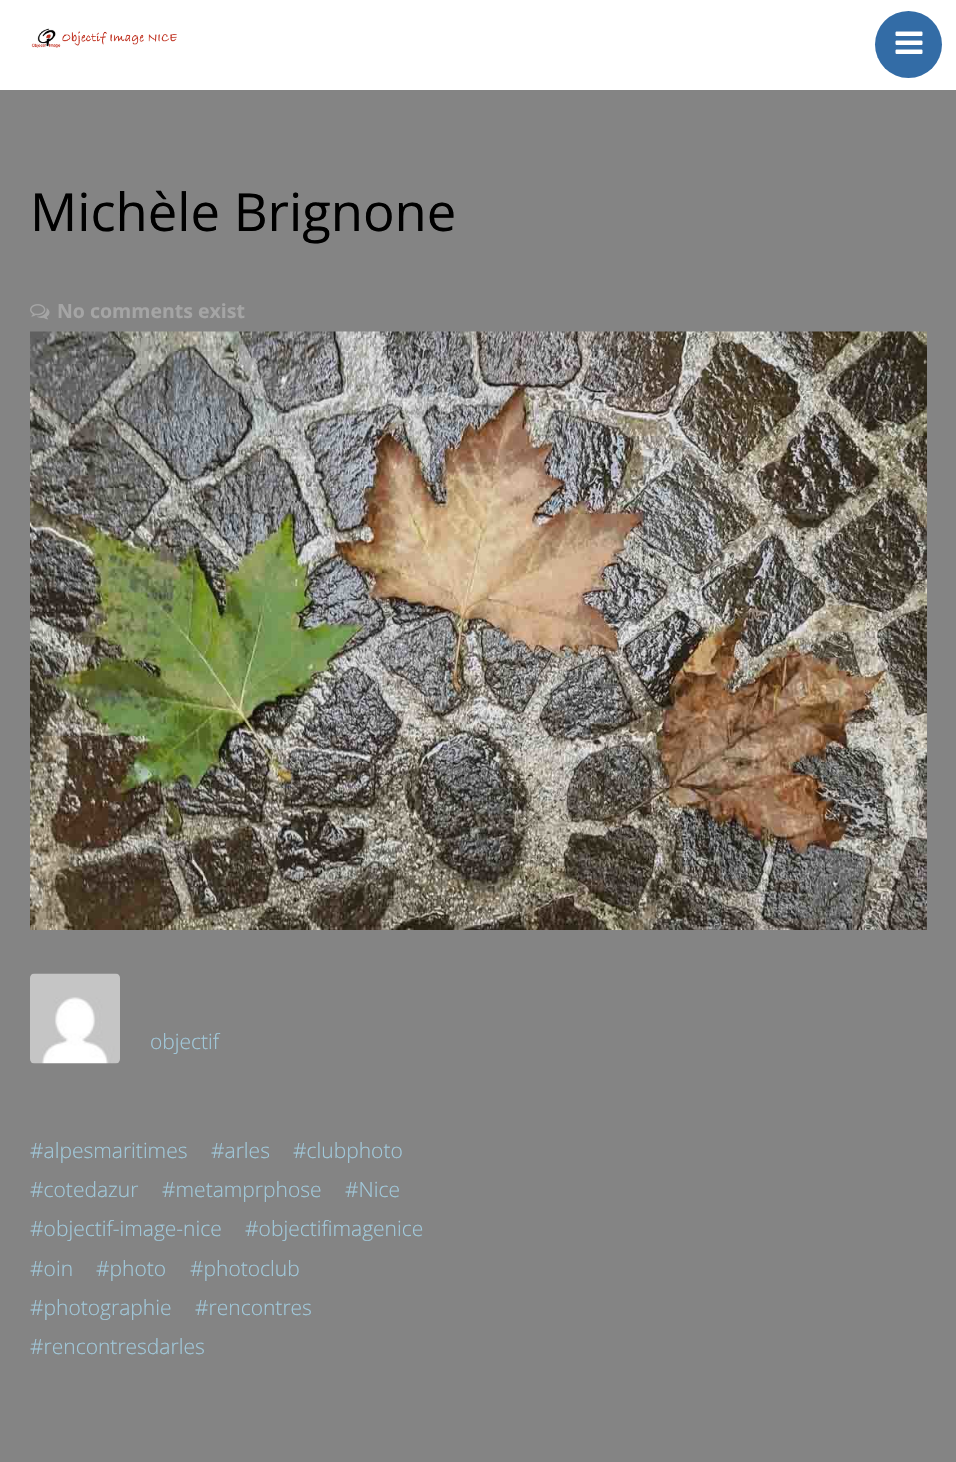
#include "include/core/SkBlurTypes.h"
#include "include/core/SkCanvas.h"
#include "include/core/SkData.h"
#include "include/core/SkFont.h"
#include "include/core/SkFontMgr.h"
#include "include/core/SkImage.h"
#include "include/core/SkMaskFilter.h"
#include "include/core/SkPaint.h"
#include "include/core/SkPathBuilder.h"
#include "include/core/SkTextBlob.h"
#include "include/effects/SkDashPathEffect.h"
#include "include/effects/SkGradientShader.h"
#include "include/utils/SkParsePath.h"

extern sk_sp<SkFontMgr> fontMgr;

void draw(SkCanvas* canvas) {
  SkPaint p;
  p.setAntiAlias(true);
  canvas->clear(SkColorSetRGB(132, 132, 132));
  p.setColor(SK_ColorWHITE);
  canvas->drawRect(SkRect::MakeLTRB(0, 0, 956, 90), p);
  canvas->drawImageRect(SkImages::DeferredFromEncodedData(SkData::MakeFromFileName("images/1.png")), SkRect::MakeLTRB(31, 28, 177, 48), SkSamplingOptions());
  p.setColor(SkColorSetRGB(51, 108, 166));
  canvas->drawCircle(908.5f, 44.5f, 33.5f, p);
  canvas->drawImageRect(SkImages::DeferredFromEncodedData(SkData::MakeFromFileName("images/2.png")), SkRect::MakeLTRB(895, 31, 923, 54), SkSamplingOptions());
  canvas->drawImageRect(SkImages::DeferredFromEncodedData(SkData::MakeFromFileName("images/3.png")), SkRect::MakeLTRB(30, 304, 50, 320), SkSamplingOptions());
  canvas->drawImageRect(SkImages::DeferredFromEncodedData(SkData::MakeFromFileName("images/4.png")), SkRect::MakeLTRB(30, 331, 927, 930), SkSamplingOptions());
  canvas->drawImageRect(SkImages::DeferredFromEncodedData(SkData::MakeFromFileName("images/5.png")), SkRect::MakeLTRB(30, 973, 120, 1064), SkSamplingOptions());
  SkFont font1(fontMgr->matchFamilyStyle("Open Sans", SkFontStyle::Normal()), 52.5f);
  font1.setSubpixel(true);
  p.setColor(SK_ColorBLACK);
  canvas->drawString("Michèle Brignone", 30, 231, font1, p);
  SkFont font2(fontMgr->matchFamilyStyle("Open Sans", SkFontStyle::Bold()), 19.5f);
  font2.setSubpixel(true);
  p.setColor(SkColorSetRGB(165, 165, 165));
  canvas->drawString("No comments exist", 57, 318, font2, p);
  SkFont font3(fontMgr->matchFamilyStyle("Open Sans", SkFontStyle(300, SkFontStyle::kNormal_Width, SkFontStyle::kUpright_Slant)), 21);
  font3.setSubpixel(true);
  p.setColor(SkColorSetRGB(161, 201, 219));
  canvas->drawString("objectif", 150, 1049, font3, p);
  canvas->drawString("#alpesmaritimes", 30, 1158, font3, p);
  canvas->drawString("#arles", 211, 1158, font3, p);
  canvas->drawString("#clubphoto", 293, 1158, font3, p);
  canvas->drawString("#cotedazur", 30, 1197, font3, p);
  canvas->drawString("#metamprphose", 162, 1197, font3, p);
  canvas->drawString("#Nice", 345, 1197, font3, p);
  canvas->drawString("#objectif-image-nice", 30, 1236, font3, p);
  canvas->drawString("#objectifimagenice", 245, 1236, font3, p);
  canvas->drawString("#oin", 30, 1276, font3, p);
  canvas->drawString("#photo", 96, 1276, font3, p);
  canvas->drawString("#photoclub", 190, 1276, font3, p);
  canvas->drawString("#photographie", 30, 1315, font3, p);
  canvas->drawString("#rencontres", 195, 1315, font3, p);
  canvas->drawString("#rencontresdarles", 30, 1354, font3, p);
}
